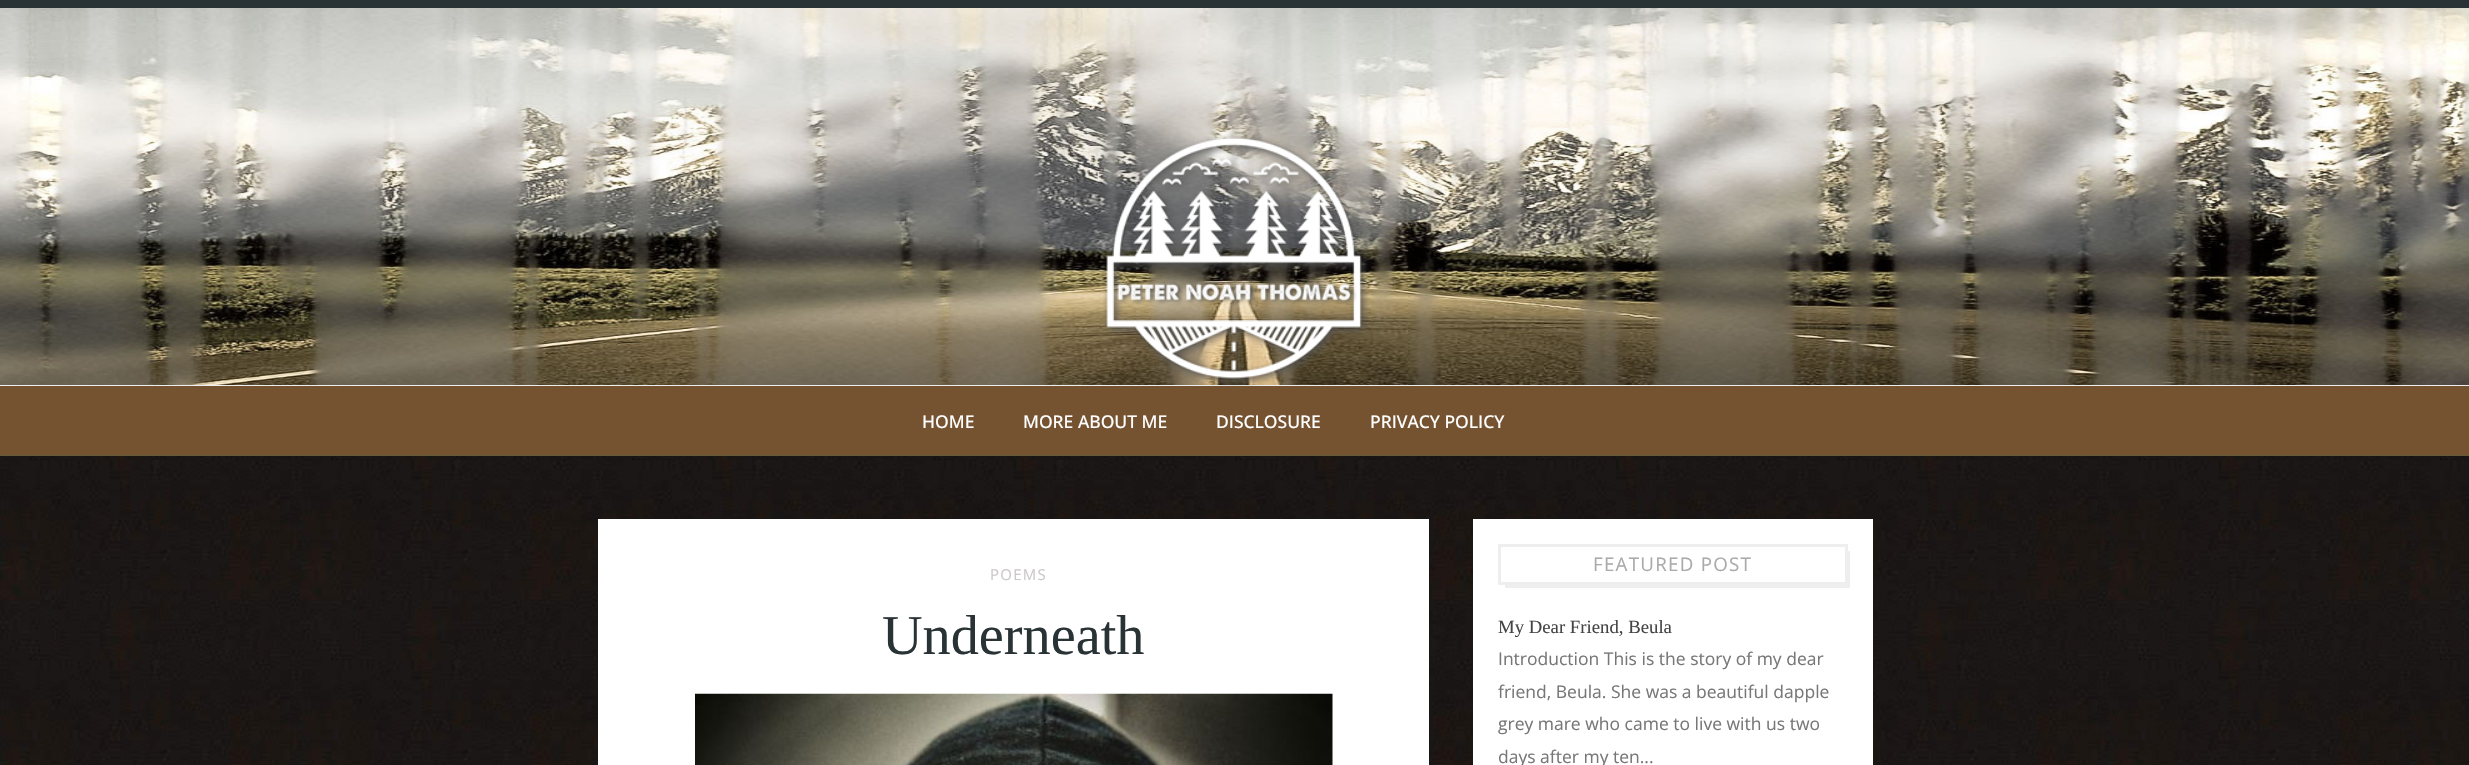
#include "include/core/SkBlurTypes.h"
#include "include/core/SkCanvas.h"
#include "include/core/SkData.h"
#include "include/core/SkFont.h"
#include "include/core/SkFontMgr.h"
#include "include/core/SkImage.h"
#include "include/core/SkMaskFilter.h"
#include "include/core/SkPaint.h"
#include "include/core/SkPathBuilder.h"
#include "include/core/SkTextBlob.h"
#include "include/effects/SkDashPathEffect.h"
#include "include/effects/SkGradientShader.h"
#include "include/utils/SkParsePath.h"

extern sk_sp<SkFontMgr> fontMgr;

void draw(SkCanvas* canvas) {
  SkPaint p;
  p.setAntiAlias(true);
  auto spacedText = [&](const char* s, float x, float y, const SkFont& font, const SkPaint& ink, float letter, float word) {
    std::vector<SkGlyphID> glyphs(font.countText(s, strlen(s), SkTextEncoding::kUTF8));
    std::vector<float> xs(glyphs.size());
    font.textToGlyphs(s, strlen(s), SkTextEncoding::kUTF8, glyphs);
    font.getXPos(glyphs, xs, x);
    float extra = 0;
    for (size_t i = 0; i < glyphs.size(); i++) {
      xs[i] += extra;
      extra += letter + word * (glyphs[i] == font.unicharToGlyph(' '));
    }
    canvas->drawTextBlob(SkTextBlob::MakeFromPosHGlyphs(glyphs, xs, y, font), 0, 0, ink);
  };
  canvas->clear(SK_ColorWHITE);
  canvas->drawImageRect(SkImages::DeferredFromEncodedData(SkData::MakeFromFileName("images/1.png")), SkRect::MakeLTRB(0, 456, 2469, 765), SkSamplingOptions());
  p.setColor(SkColorSetRGB(41, 51, 53));
  canvas->drawRect(SkRect::MakeLTRB(0, 0, 2469, 8), p);
  canvas->drawImageRect(SkImages::DeferredFromEncodedData(SkData::MakeFromFileName("images/3.png")), SkRect::MakeLTRB(0, 8, 2469, 385), SkSamplingOptions());
  p.setColor(SkColorSetRGB(238, 238, 238));
  canvas->drawRect(SkRect::MakeLTRB(0, 385, 2469, 386), p);
  canvas->drawImageRect(SkImages::DeferredFromEncodedData(SkData::MakeFromFileName("images/2.png")), SkRect::MakeLTRB(1103, 134, 1370, 386), SkSamplingOptions());
  p.setColor(SkColorSetARGB(13, 0, 0, 0));
  p.setMaskFilter(SkMaskFilter::MakeBlur(kNormal_SkBlurStyle, 0.5f));
  canvas->drawRect(SkRect::MakeLTRB(4, 389, 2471, 460), p);
  p.setMaskFilter(nullptr);
  p.setColor(SkColorSetRGB(117, 83, 48));
  canvas->drawRect(SkRect::MakeLTRB(0, 386, 2469, 455), p);
  p.setColor(SkColorSetRGB(98, 91, 55));
  canvas->drawRect(SkRect::MakeLTRB(0, 455, 2469, 456), p);
  p.setColor(SK_ColorWHITE);
  canvas->drawRect(SkRect::MakeLTRB(598, 519, 1429, 765), p);
  canvas->drawImageRect(SkImages::DeferredFromEncodedData(SkData::MakeFromFileName("images/4.png")), SkRect::MakeLTRB(695, 693, 1333, 765), SkSamplingOptions());
  canvas->drawRect(SkRect::MakeLTRB(1473, 519, 1873, 765), p);
  p.setStyle(SkPaint::kStroke_Style);
  p.setStrokeWidth(3);
  p.setColor(SkColorSetRGB(238, 238, 238));
  canvas->drawRect(SkRect::MakeLTRB(1499.5f, 545.5f, 1846.5f, 583.5f), p);
  p.setStyle(SkPaint::kFill_Style);
  canvas->drawRect(SkRect::MakeLTRB(1846, 551, 1850, 588), p);
  canvas->drawRect(SkRect::MakeLTRB(1505, 585, 1850, 588), p);
  SkFont font1(fontMgr->matchFamilyStyle("Open Sans", SkFontStyle(500, SkFontStyle::kNormal_Width, SkFontStyle::kUpright_Slant)), 17.5f);
  font1.setSubpixel(true);
  p.setColor(SK_ColorWHITE);
  canvas->drawString("HOME", 922, 428, font1, p);
  canvas->drawString("MORE ABOUT ME", 1023, 428, font1, p);
  canvas->drawString("DISCLOSURE", 1216, 428, font1, p);
  canvas->drawString("PRIVACY POLICY", 1370, 428, font1, p);
  SkFont font2(fontMgr->matchFamilyStyle("Open Sans", SkFontStyle::Normal()), 15);
  font2.setSubpixel(true);
  p.setColor(SkColorSetRGB(204, 200, 201));
  spacedText("POEMS", 990, 580, font2, p, 1.25f, 0);
  SkFont font3(fontMgr->matchFamilyStyle("Liberation Serif", SkFontStyle::Normal()), 56.25f);
  font3.setSubpixel(true);
  p.setColor(SkColorSetRGB(41, 51, 53));
  canvas->drawString("Underneath", 882, 654, font3, p);
  SkFont font4(fontMgr->matchFamilyStyle("Open Sans", SkFontStyle::Normal()), 18.75f);
  font4.setSubpixel(true);
  p.setColor(SkColorSetRGB(170, 170, 170));
  spacedText("FEATURED POST", 1593, 571, font4, p, 1.25f, 0);
  SkFont font5(fontMgr->matchFamilyStyle("Liberation Serif", SkFontStyle::Normal()), 18.75f);
  font5.setSubpixel(true);
  p.setColor(SkColorSetRGB(68, 68, 68));
  canvas->drawString("My Dear Friend, Beula", 1498, 633, font5, p);
  SkFont font6(fontMgr->matchFamilyStyle("Open Sans", SkFontStyle::Normal()), 17.5f);
  font6.setSubpixel(true);
  p.setColor(SkColorSetRGB(119, 119, 119));
  canvas->drawString("Introduction This is the story of my dear", 1498, 665, font6, p);
  canvas->drawString("friend, Beula. She was a beautiful dapple", 1498, 698, font6, p);
  canvas->drawString("grey mare who came to live with us two", 1498, 730, font6, p);
  canvas->drawString("days after my ten...", 1498, 763, font6, p);
}
